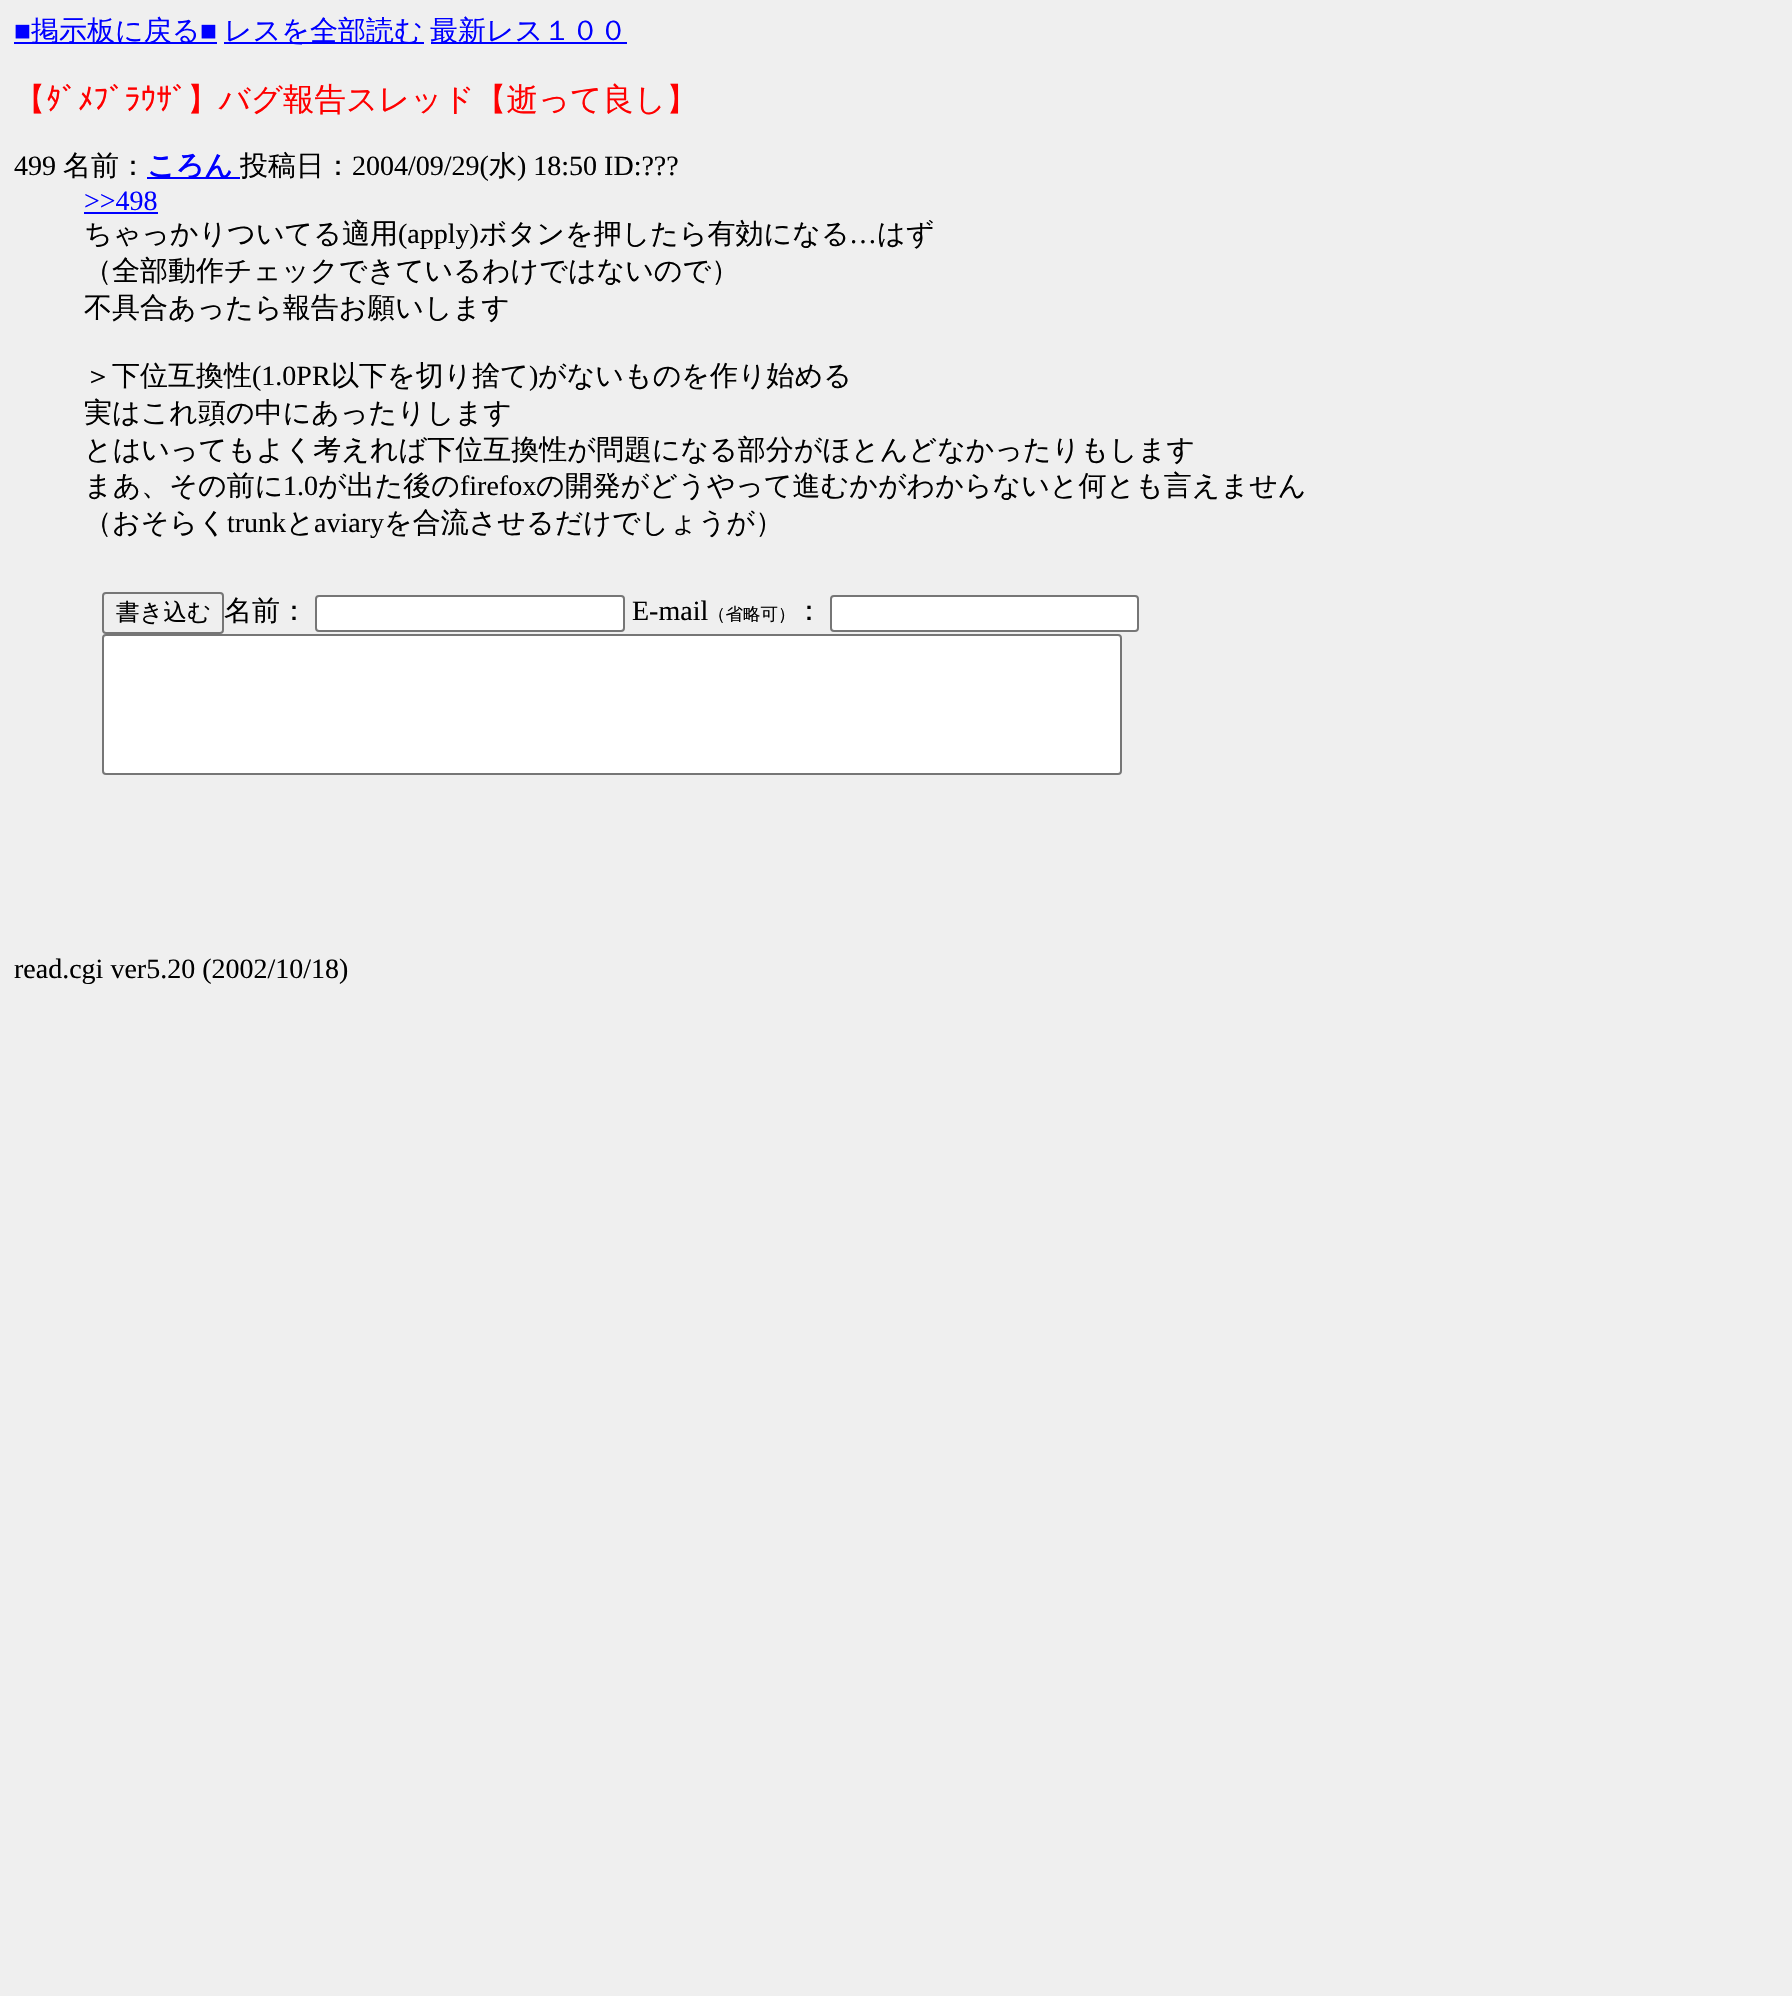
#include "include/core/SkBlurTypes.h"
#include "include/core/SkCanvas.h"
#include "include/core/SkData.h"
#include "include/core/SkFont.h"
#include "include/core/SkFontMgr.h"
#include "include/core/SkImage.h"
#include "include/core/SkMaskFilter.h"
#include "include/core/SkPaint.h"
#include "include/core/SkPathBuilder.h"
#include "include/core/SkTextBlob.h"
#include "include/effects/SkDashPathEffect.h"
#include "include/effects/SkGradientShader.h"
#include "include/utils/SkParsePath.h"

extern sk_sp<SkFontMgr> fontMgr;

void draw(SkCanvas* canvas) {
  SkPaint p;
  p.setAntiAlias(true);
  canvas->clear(SkColorSetRGB(239, 239, 239));
  p.setColor(SkColorSetRGB(0, 0, 255));
  canvas->drawRect(SkRect::MakeLTRB(14, 42, 217, 44), p);
  canvas->drawRect(SkRect::MakeLTRB(224, 42, 424, 44), p);
  canvas->drawRect(SkRect::MakeLTRB(431, 42, 627, 44), p);
  canvas->drawRect(SkRect::MakeLTRB(147, 177, 240, 179), p);
  canvas->drawRect(SkRect::MakeLTRB(84, 212, 158, 214), p);
  p.setStyle(SkPaint::kStroke_Style);
  p.setStrokeWidth(2);
  p.setColor(SkColorSetRGB(118, 118, 118));
  canvas->drawRoundRect(SkRect::MakeLTRB(103, 593, 223, 633), 3, 3, p);
  p.setStyle(SkPaint::kFill_Style);
  p.setColor(SK_ColorWHITE);
  canvas->drawRoundRect(SkRect::MakeLTRB(316, 596, 624, 631), 3, 3, p);
  p.setStyle(SkPaint::kStroke_Style);
  p.setColor(SkColorSetRGB(118, 118, 118));
  canvas->drawRoundRect(SkRect::MakeLTRB(316, 596, 624, 631), 3, 3, p);
  p.setStyle(SkPaint::kFill_Style);
  p.setColor(SK_ColorWHITE);
  canvas->drawRoundRect(SkRect::MakeLTRB(831, 596, 1138, 631), 3, 3, p);
  p.setStyle(SkPaint::kStroke_Style);
  p.setColor(SkColorSetRGB(118, 118, 118));
  canvas->drawRoundRect(SkRect::MakeLTRB(831, 596, 1138, 631), 3, 3, p);
  p.setStyle(SkPaint::kFill_Style);
  p.setColor(SK_ColorWHITE);
  canvas->drawRoundRect(SkRect::MakeLTRB(103, 635, 1121, 774), 3, 3, p);
  p.setStyle(SkPaint::kStroke_Style);
  p.setColor(SkColorSetRGB(118, 118, 118));
  canvas->drawRoundRect(SkRect::MakeLTRB(103, 635, 1121, 774), 3, 3, p);
  SkFont font1(fontMgr->matchFamilyStyle("Liberation Serif", SkFontStyle::Normal()), 28);
  font1.setSubpixel(true);
  p.setStyle(SkPaint::kFill_Style);
  p.setColor(SkColorSetRGB(0, 0, 255));
  canvas->drawString("■", 14, 40, font1, p);
  SkFont font2(fontMgr->matchFamilyStyle("WenQuanYi Zen Hei", SkFontStyle(500, SkFontStyle::kNormal_Width, SkFontStyle::kUpright_Slant)), 28);
  font2.setSubpixel(true);
  canvas->drawString("掲示板に戻る", 31, 40, font2, p);
  canvas->drawString("■", 200, 40, font1, p);
  canvas->drawString("レスを全部読む", 224, 40, font2, p);
  canvas->drawString("最新レス１００", 430, 40, font2, p);
  SkFont font3(fontMgr->matchFamilyStyle("WenQuanYi Zen Hei", SkFontStyle(500, SkFontStyle::kNormal_Width, SkFontStyle::kUpright_Slant)), 31.5f);
  font3.setSubpixel(true);
  p.setColor(SkColorSetRGB(255, 0, 0));
  canvas->drawString("【", 14, 110, font3, p);
  SkFont font4(fontMgr->matchFamilyStyle("IPAGothic", SkFontStyle::Normal()), 31.5f);
  font4.setSubpixel(true);
  canvas->drawString("ﾀﾞﾒﾌﾞﾗｳｻﾞ", 46, 110, font4, p);
  canvas->drawString("】バグ報告スレッド【逝って良し】", 187, 110, font3, p);
  p.setColor(SK_ColorBLACK);
  canvas->drawString("499", 14, 175, font1, p);
  canvas->drawString("名前：", 63, 175, font2, p);
  SkFont font5(fontMgr->matchFamilyStyle("WenQuanYi Zen Hei", SkFontStyle::Bold()), 28);
  font5.setSubpixel(true);
  p.setColor(SkColorSetRGB(0, 0, 255));
  canvas->drawString("ころん", 147, 175, font5, p);
  p.setColor(SK_ColorBLACK);
  canvas->drawString("投稿日：", 240, 175, font2, p);
  canvas->drawString("2004/09/29(", 352, 175, font1, p);
  canvas->drawString("水", 489, 175, font2, p);
  canvas->drawString(") 18:50 ID:?\077?", 517, 175, font1, p);
  p.setColor(SkColorSetRGB(0, 0, 255));
  canvas->drawString(">>498", 84, 210, font1, p);
  p.setColor(SK_ColorBLACK);
  canvas->drawString("ちゃっかりついてる適用", 84, 243, font2, p);
  canvas->drawString("(apply)", 398, 243, font1, p);
  canvas->drawString("ボタンを押したら有効になる", 479, 243, font2, p);
  canvas->drawString("…", 849, 243, font1, p);
  canvas->drawString("はず", 877, 243, font2, p);
  canvas->drawString("（全部動作チェックできているわけではないので）", 84, 280, font2, p);
  canvas->drawString("不具合あったら報告お願いします", 84, 317, font2, p);
  canvas->drawString("＞下位互換性", 84, 385, font2, p);
  canvas->drawString("(1.0PR", 252, 385, font1, p);
  canvas->drawString("以下を切り捨て", 331, 385, font2, p);
  canvas->drawString(")", 529, 385, font1, p);
  canvas->drawString("がないものを作り始める", 538, 385, font2, p);
  canvas->drawString("実はこれ頭の中にあったりします", 84, 422, font2, p);
  canvas->drawString("とはいってもよく考えれば下位互換性が問題になる部分がほとんどなかったりもします", 84, 459, font2, p);
  canvas->drawString("まあ、その前に", 84, 495, font2, p);
  canvas->drawString("1.0", 283, 495, font1, p);
  canvas->drawString("が出た後の", 318, 495, font2, p);
  canvas->drawString("firefox", 460, 495, font1, p);
  canvas->drawString("の開発がどうやって進むかがわからないと何とも言えません", 536, 495, font2, p);
  canvas->drawString("（おそらく", 84, 532, font2, p);
  canvas->drawString("trunk", 227, 532, font1, p);
  canvas->drawString("と", 286, 532, font2, p);
  canvas->drawString("aviary", 314, 532, font1, p);
  canvas->drawString("を合流させるだけでしょうが）", 384, 532, font2, p);
  SkFont font6(fontMgr->matchFamilyStyle("WenQuanYi Zen Hei", SkFontStyle(500, SkFontStyle::kNormal_Width, SkFontStyle::kUpright_Slant)), 23.5f);
  font6.setSubpixel(true);
  canvas->drawString("書き込む", 116, 620, font6, p);
  canvas->drawString("名前：", 224, 620, font2, p);
  canvas->drawString("E-mail", 632, 620, font1, p);
  SkFont font7(fontMgr->matchFamilyStyle("WenQuanYi Zen Hei", SkFontStyle(500, SkFontStyle::kNormal_Width, SkFontStyle::kUpright_Slant)), 17.5f);
  font7.setSubpixel(true);
  canvas->drawString("（省略可）", 708, 620, font7, p);
  canvas->drawString("：", 795, 620, font2, p);
  canvas->drawString("read.cgi ver5.20 (2002/10/18)", 14, 978, font1, p);
}
